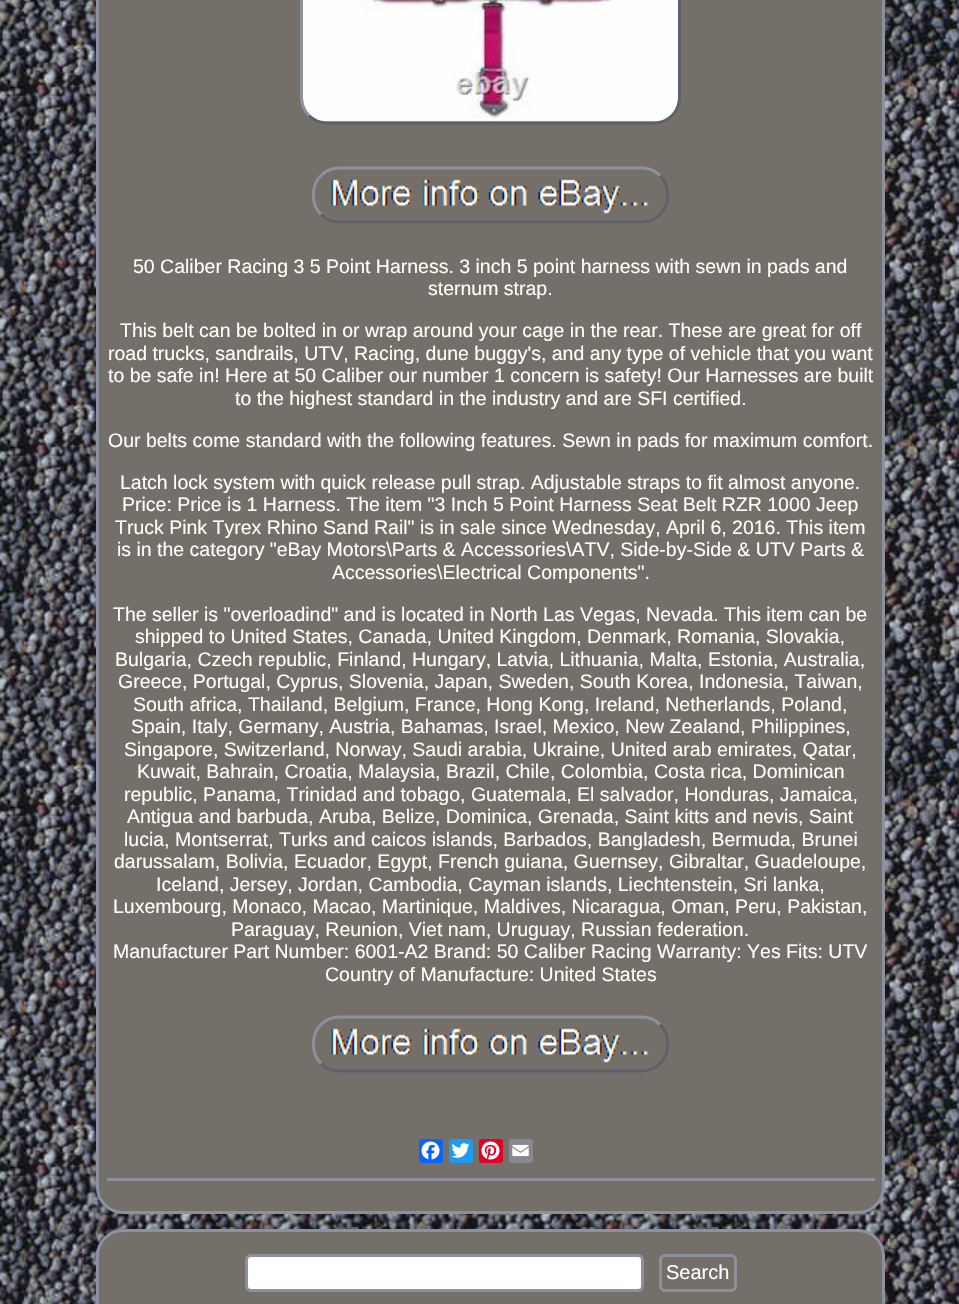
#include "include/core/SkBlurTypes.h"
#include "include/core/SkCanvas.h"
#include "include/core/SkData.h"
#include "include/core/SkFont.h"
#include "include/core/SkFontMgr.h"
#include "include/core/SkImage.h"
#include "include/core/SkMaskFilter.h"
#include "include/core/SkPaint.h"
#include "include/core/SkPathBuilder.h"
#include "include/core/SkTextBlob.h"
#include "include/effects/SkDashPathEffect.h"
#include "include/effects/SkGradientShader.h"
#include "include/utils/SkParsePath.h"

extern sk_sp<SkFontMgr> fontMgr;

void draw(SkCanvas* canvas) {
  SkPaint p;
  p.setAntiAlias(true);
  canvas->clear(SK_ColorWHITE);
  canvas->drawImageRect(SkImages::DeferredFromEncodedData(SkData::MakeFromFileName("images/1.png")), SkRect::MakeLTRB(0, 0, 959, 1304), SkSamplingOptions());
  p.setColor(SkColorSetRGB(116, 111, 105));
  canvas->drawRoundRect(SkRect::MakeLTRB(97.5f, -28.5f, 883.5f, 1212.5f), 25.5f, 25.5f, p);
  p.setStyle(SkPaint::kStroke_Style);
  p.setStrokeWidth(3);
  p.setColor(SkColorSetRGB(141, 144, 159));
  canvas->drawRoundRect(SkRect::MakeLTRB(97.5f, -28.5f, 883.5f, 1212.5f), 25.5f, 25.5f, p);
  p.setColor(SkColorSetRGB(94, 96, 106));
  canvas->drawPath(SkPathBuilder().moveTo(672, -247.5f).cubicTo(677, -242.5f, 679.5f, -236.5f, 679.5f, -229.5f).lineTo(679.5f, 97.5f).cubicTo(679.5f, 104.5f, 677, 110.5f, 672, 115.5f).cubicTo(667, 120.5f, 661, 123, 654, 123).lineTo(327, 123).cubicTo(320, 123, 314, 120.5f, 309, 115.5f).detach(), p);
  p.setColor(SkColorSetRGB(141, 144, 159));
  canvas->drawPath(SkPathBuilder().moveTo(309, 115.5f).cubicTo(304, 110.5f, 301.5f, 104.5f, 301.5f, 97.5f).lineTo(301.5f, -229.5f).cubicTo(301.5f, -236.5f, 304, -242.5f, 309, -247.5f).cubicTo(314, -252.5f, 320, -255, 327, -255).lineTo(654, -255).cubicTo(661, -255, 667, -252.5f, 672, -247.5f).detach(), p);
  canvas->drawImageRect(SkImages::DeferredFromEncodedData(SkData::MakeFromFileName("images/2.png")), SkRect::MakeLTRB(303, 0, 678, 122), SkSamplingOptions());
  p.setColor(SkColorSetRGB(94, 96, 106));
  canvas->drawPath(SkPathBuilder().moveTo(660, 175.5f).cubicTo(665, 180.5f, 667.5f, 186.5f, 667.5f, 193.5f).lineTo(667.5f, 196.5f).cubicTo(667.5f, 203.5f, 665, 209.5f, 660, 214.5f).cubicTo(655, 219.5f, 649, 222, 642, 222).lineTo(339, 222).cubicTo(332, 222, 326, 219.5f, 321, 214.5f).detach(), p);
  p.setColor(SkColorSetRGB(141, 144, 159));
  canvas->drawPath(SkPathBuilder().moveTo(321, 214.5f).cubicTo(316, 209.5f, 313.5f, 203.5f, 313.5f, 196.5f).lineTo(313.5f, 193.5f).cubicTo(313.5f, 186.5f, 316, 180.5f, 321, 175.5f).cubicTo(326, 170.5f, 332, 168, 339, 168).lineTo(642, 168).cubicTo(649, 168, 655, 170.5f, 660, 175.5f).detach(), p);
  canvas->drawImageRect(SkImages::DeferredFromEncodedData(SkData::MakeFromFileName("images/3.png")), SkRect::MakeLTRB(331, 179, 649, 214), SkSamplingOptions());
  p.setColor(SkColorSetRGB(94, 96, 106));
  canvas->drawPath(SkPathBuilder().moveTo(660, 1024.5f).cubicTo(665, 1029.5f, 667.5f, 1035.5f, 667.5f, 1042.5f).lineTo(667.5f, 1045.5f).cubicTo(667.5f, 1052.5f, 665, 1058.5f, 660, 1063.5f).cubicTo(655, 1068.5f, 649, 1071, 642, 1071).lineTo(339, 1071).cubicTo(332, 1071, 326, 1068.5f, 321, 1063.5f).detach(), p);
  p.setColor(SkColorSetRGB(141, 144, 159));
  canvas->drawPath(SkPathBuilder().moveTo(321, 1063.5f).cubicTo(316, 1058.5f, 313.5f, 1052.5f, 313.5f, 1045.5f).lineTo(313.5f, 1042.5f).cubicTo(313.5f, 1035.5f, 316, 1029.5f, 321, 1024.5f).cubicTo(326, 1019.5f, 332, 1017, 339, 1017).lineTo(642, 1017).cubicTo(649, 1017, 655, 1019.5f, 660, 1024.5f).detach(), p);
  canvas->drawImageRect(SkImages::DeferredFromEncodedData(SkData::MakeFromFileName("images/3.png")), SkRect::MakeLTRB(331, 1028, 649, 1063), SkSamplingOptions());
  p.setStyle(SkPaint::kFill_Style);
  p.setColor(SkColorSetRGB(8, 102, 255));
  canvas->drawRoundRect(SkRect::MakeLTRB(419, 1139, 443, 1163), 3, 3, p);
  canvas->drawImageRect(SkImages::DeferredFromEncodedData(SkData::MakeFromFileName("images/4.png")), SkRect::MakeLTRB(421, 1141, 440, 1160), SkSamplingOptions());
  p.setColor(SkColorSetRGB(29, 155, 240));
  canvas->drawRoundRect(SkRect::MakeLTRB(449, 1139, 473, 1163), 3, 3, p);
  canvas->drawImageRect(SkImages::DeferredFromEncodedData(SkData::MakeFromFileName("images/5.png")), SkRect::MakeLTRB(451, 1143, 470, 1158), SkSamplingOptions());
  p.setColor(SkColorSetRGB(230, 0, 35));
  canvas->drawRoundRect(SkRect::MakeLTRB(479, 1139, 503, 1163), 3, 3, p);
  canvas->drawImageRect(SkImages::DeferredFromEncodedData(SkData::MakeFromFileName("images/6.png")), SkRect::MakeLTRB(481, 1141, 500, 1160), SkSamplingOptions());
  p.setColor(SkColorSetRGB(136, 137, 144));
  canvas->drawRoundRect(SkRect::MakeLTRB(509, 1139, 533, 1163), 3, 3, p);
  canvas->drawImageRect(SkImages::DeferredFromEncodedData(SkData::MakeFromFileName("images/7.png")), SkRect::MakeLTRB(512, 1144, 529, 1157), SkSamplingOptions());
  p.setColor(SkColorSetRGB(141, 144, 159));
  canvas->drawRect(SkRect::MakeLTRB(107, 1178, 875, 1181), p);
  p.setColor(SkColorSetRGB(116, 111, 105));
  canvas->drawRoundRect(SkRect::MakeLTRB(97.5f, 1230.5f, 883.5f, 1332.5f), 25.5f, 25.5f, p);
  p.setStyle(SkPaint::kStroke_Style);
  p.setColor(SkColorSetRGB(141, 144, 159));
  canvas->drawRoundRect(SkRect::MakeLTRB(97.5f, 1230.5f, 883.5f, 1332.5f), 25.5f, 25.5f, p);
  p.setStyle(SkPaint::kFill_Style);
  p.setColor(SK_ColorWHITE);
  canvas->drawRoundRect(SkRect::MakeLTRB(246.5f, 1255.5f, 642.5f, 1290.5f), 4.5f, 4.5f, p);
  p.setStyle(SkPaint::kStroke_Style);
  p.setColor(SkColorSetRGB(141, 144, 159));
  canvas->drawRoundRect(SkRect::MakeLTRB(246.5f, 1255.5f, 642.5f, 1290.5f), 4.5f, 4.5f, p);
  canvas->drawRoundRect(SkRect::MakeLTRB(660.5f, 1255.5f, 735.5f, 1290.5f), 4.5f, 4.5f, p);
  SkFont font1(fontMgr->matchFamilyStyle("Liberation Sans", SkFontStyle::Normal()), 19.5f);
  font1.setSubpixel(true);
  p.setStyle(SkPaint::kFill_Style);
  p.setColor(SK_ColorWHITE);
  canvas->drawString("50 Caliber Racing 3 5 Point Harness. 3 inch 5 point harness with sewn in pads and", 133, 273, font1, p);
  canvas->drawString("sternum strap.", 428, 295, font1, p);
  canvas->drawString("This belt can be bolted in or wrap around your cage in the rear. These are great for off", 120, 337, font1, p);
  canvas->drawString("road trucks, sandrails, UTV, Racing, dune buggy's, and any type of vehicle that you want", 108, 360, font1, p);
  canvas->drawString("to be safe in! Here at 50 Caliber our number 1 concern is safety! Our Harnesses are built", 108, 382, font1, p);
  canvas->drawString("to the highest standard in the industry and are SFI certified.", 235, 405, font1, p);
  canvas->drawString("Our belts come standard with the following features. Sewn in pads for maximum comfort.", 108, 447, font1, p);
  canvas->drawString("Latch lock system with quick release pull strap. Adjustable straps to fit almost anyone.", 120, 489, font1, p);
  canvas->drawString("Price: Price is 1 Harness. The item \"3 Inch 5 Point Harness Seat Belt RZR 1000 Jeep", 122, 511, font1, p);
  canvas->drawString("Truck Pink Tyrex Rhino Sand Rail\" is in sale since Wednesday, April 6, 2016. This item", 115, 534, font1, p);
  canvas->drawString("is in the category \"eBay Motors\\Parts & Accessories\\ATV, Side-by-Side & UTV Parts &", 117, 556, font1, p);
  canvas->drawString("Accessories\\Electrical Components\".", 332, 579, font1, p);
  canvas->drawString("The seller is \"overloadind\" and is located in North Las Vegas, Nevada. This item can be", 113, 621, font1, p);
  canvas->drawString("shipped to United States, Canada, United Kingdom, Denmark, Romania, Slovakia,", 135, 643, font1, p);
  canvas->drawString("Bulgaria, Czech republic, Finland, Hungary, Latvia, Lithuania, Malta, Estonia, Australia,", 115, 666, font1, p);
  canvas->drawString("Greece, Portugal, Cyprus, Slovenia, Japan, Sweden, South Korea, Indonesia, Taiwan,", 118, 688, font1, p);
  canvas->drawString("South africa, Thailand, Belgium, France, Hong Kong, Ireland, Netherlands, Poland,", 133, 711, font1, p);
  canvas->drawString("Spain, Italy, Germany, Austria, Bahamas, Israel, Mexico, New Zealand, Philippines,", 131, 733, font1, p);
  canvas->drawString("Singapore, Switzerland, Norway, Saudi arabia, Ukraine, United arab emirates, Qatar,", 124, 756, font1, p);
  canvas->drawString("Kuwait, Bahrain, Croatia, Malaysia, Brazil, Chile, Colombia, Costa rica, Dominican", 137, 778, font1, p);
  canvas->drawString("republic, Panama, Trinidad and tobago, Guatemala, El salvador, Honduras, Jamaica,", 124, 801, font1, p);
  canvas->drawString("Antigua and barbuda, Aruba, Belize, Dominica, Grenada, Saint kitts and nevis, Saint", 127, 823, font1, p);
  canvas->drawString("lucia, Montserrat, Turks and caicos islands, Barbados, Bangladesh, Bermuda, Brunei", 124, 846, font1, p);
  canvas->drawString("darussalam, Bolivia, Ecuador, Egypt, French guiana, Guernsey, Gibraltar, Guadeloupe,", 114, 868, font1, p);
  canvas->drawString("Iceland, Jersey, Jordan, Cambodia, Cayman islands, Liechtenstein, Sri lanka,", 156, 891, font1, p);
  canvas->drawString("Luxembourg, Monaco, Macao, Martinique, Maldives, Nicaragua, Oman, Peru, Pakistan,", 113, 913, font1, p);
  canvas->drawString("Paraguay, Reunion, Viet nam, Uruguay, Russian federation.", 231, 936, font1, p);
  canvas->drawString("Manufacturer Part Number: 6001-A2 Brand: 50 Caliber Racing Warranty: Yes Fits: UTV", 113, 958, font1, p);
  canvas->drawString("Country of Manufacture: United States", 325, 981, font1, p);
  SkFont font2(fontMgr->matchFamilyStyle("Liberation Sans", SkFontStyle::Normal()), 20);
  font2.setSubpixel(true);
  canvas->drawString("Search", 666, 1279, font2, p);
}
